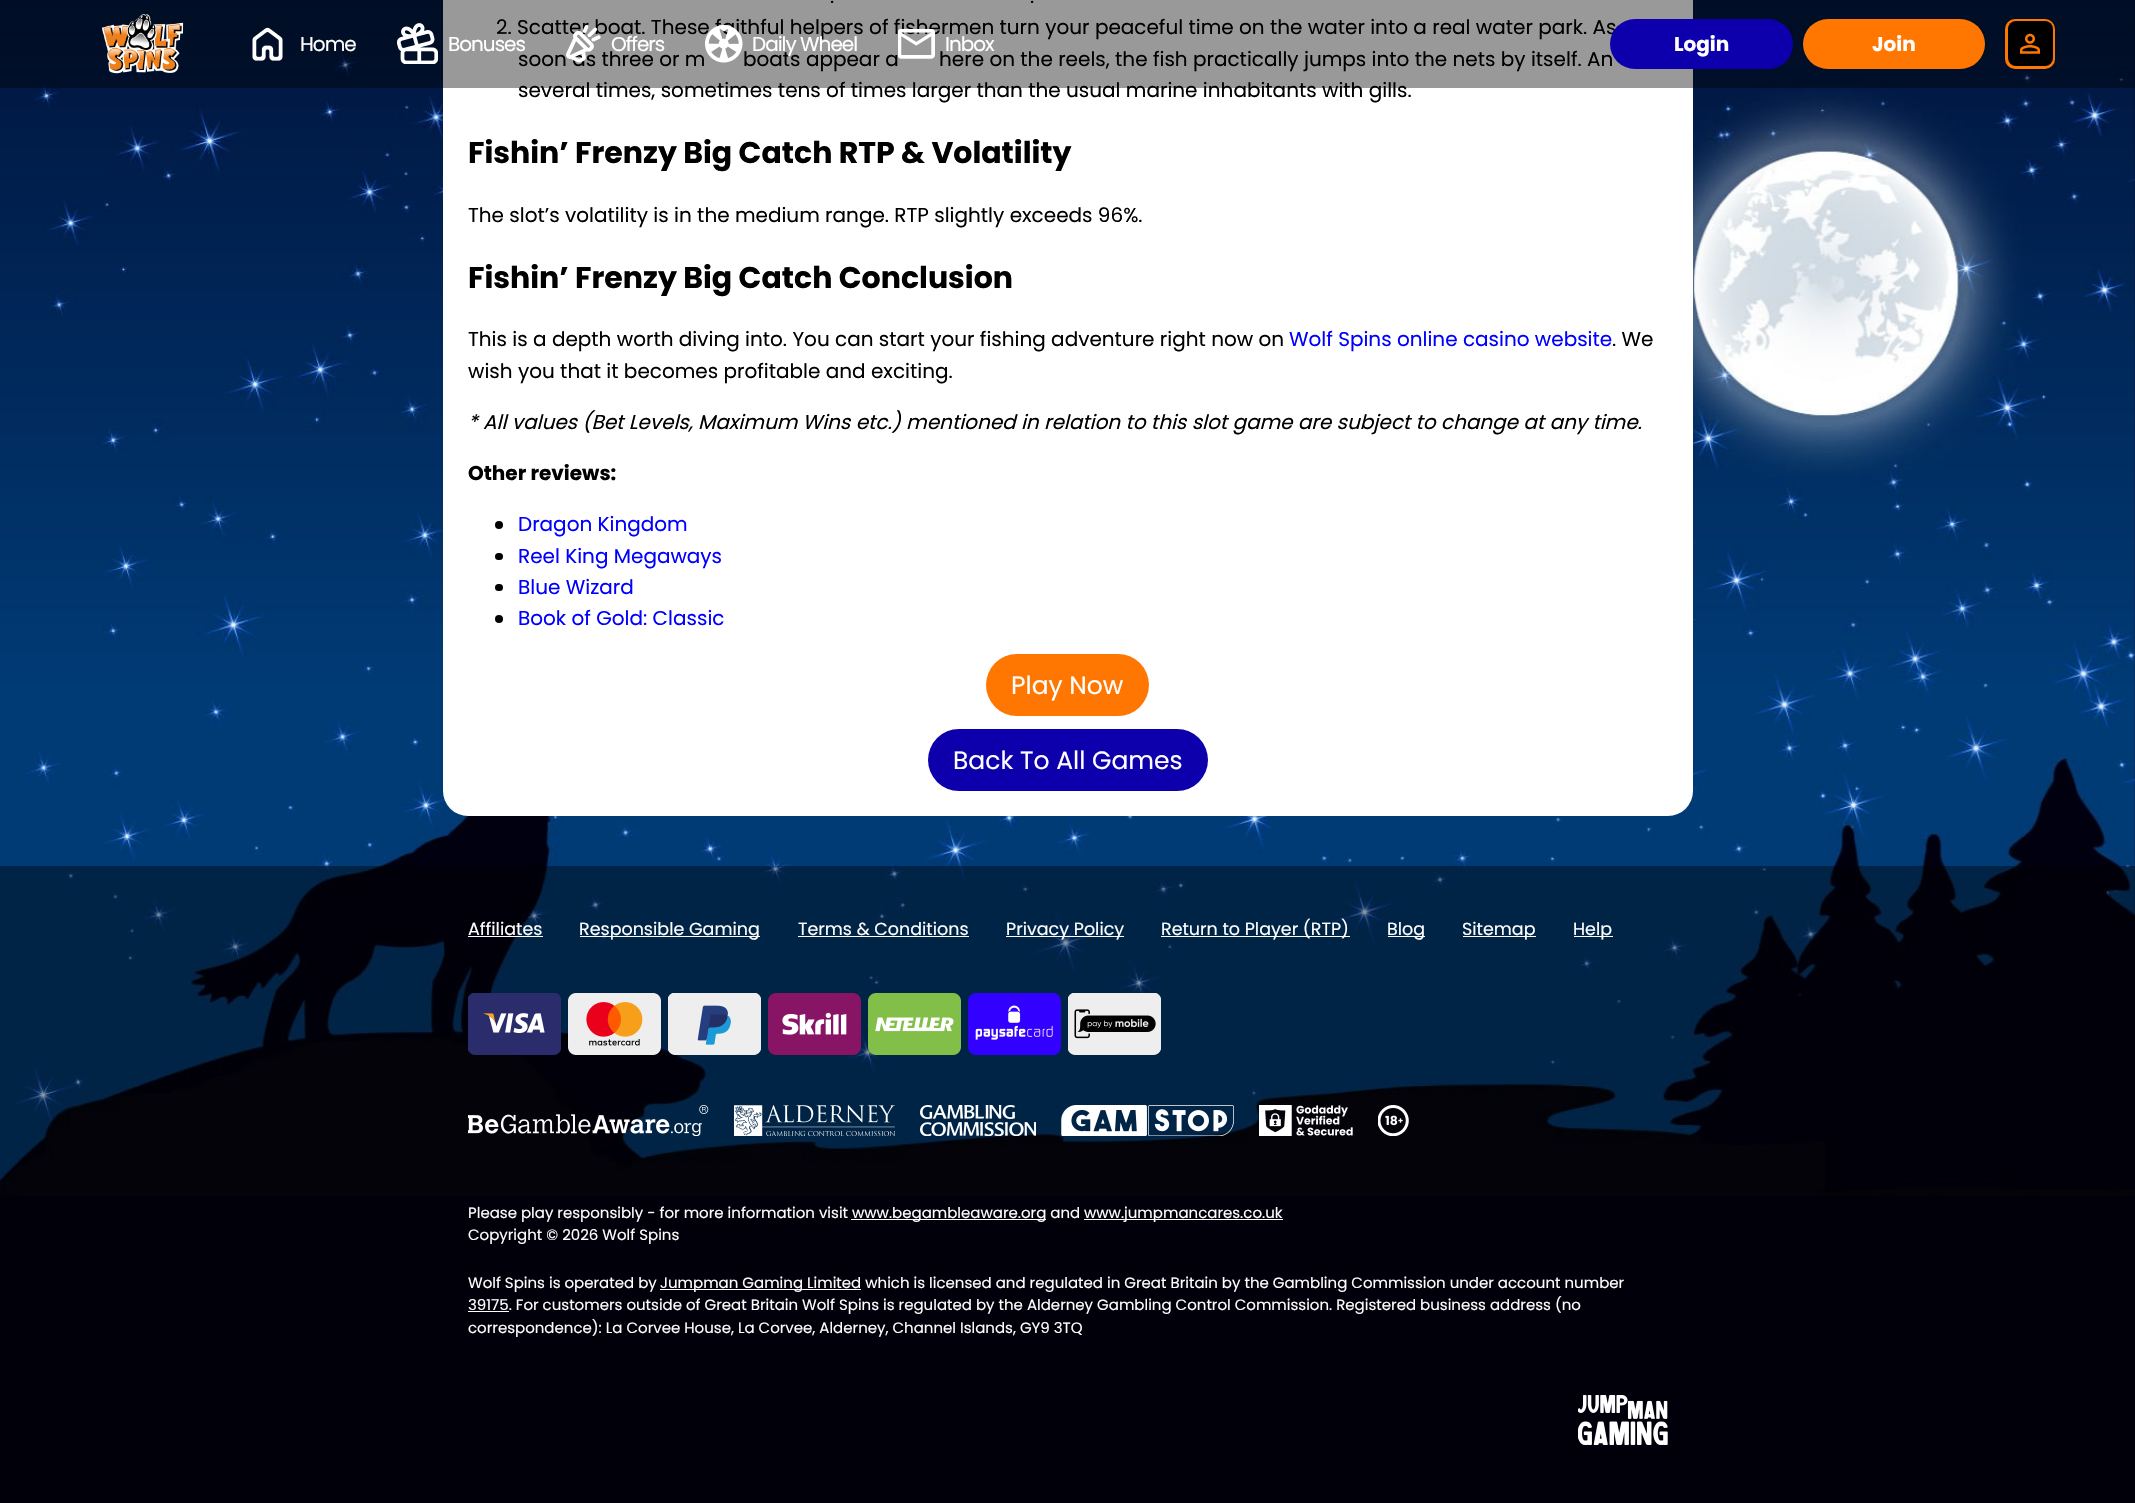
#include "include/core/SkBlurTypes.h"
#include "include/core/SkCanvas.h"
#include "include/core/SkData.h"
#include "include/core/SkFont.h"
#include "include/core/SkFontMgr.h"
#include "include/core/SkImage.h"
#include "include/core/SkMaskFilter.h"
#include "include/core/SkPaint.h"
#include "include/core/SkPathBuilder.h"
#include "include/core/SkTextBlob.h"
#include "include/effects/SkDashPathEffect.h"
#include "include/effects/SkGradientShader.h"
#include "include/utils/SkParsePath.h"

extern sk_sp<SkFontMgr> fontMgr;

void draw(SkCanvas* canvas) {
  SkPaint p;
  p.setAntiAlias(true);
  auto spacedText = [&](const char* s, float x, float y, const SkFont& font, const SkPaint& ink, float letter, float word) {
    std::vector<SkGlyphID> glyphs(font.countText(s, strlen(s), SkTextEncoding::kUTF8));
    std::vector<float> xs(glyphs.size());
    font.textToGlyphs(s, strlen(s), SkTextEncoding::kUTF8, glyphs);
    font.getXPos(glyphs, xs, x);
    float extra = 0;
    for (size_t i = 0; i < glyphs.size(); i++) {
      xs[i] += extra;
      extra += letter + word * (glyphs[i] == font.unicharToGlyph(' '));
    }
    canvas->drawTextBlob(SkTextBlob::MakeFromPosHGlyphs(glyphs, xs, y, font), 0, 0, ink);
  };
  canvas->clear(SkColorSetRGB(1, 0, 16));
  canvas->drawImageRect(SkImages::DeferredFromEncodedData(SkData::MakeFromFileName("images/1.png")), SkRect::MakeLTRB(0, 0, 2135, 1196), SkSamplingOptions());
  p.setColor(SK_ColorWHITE);
  canvas->drawRoundRect(SkRect::MakeLTRB(443, -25, 1693, 816), 25, 25, p);
  p.setColor(SK_ColorBLACK);
  canvas->drawCircle(499, 525, 4, p);
  canvas->drawRoundRect(SkRect::MakeLTRB(495, 553, 503, 560), 3.5f, 3.5f, p);
  canvas->drawRoundRect(SkRect::MakeLTRB(495, 584, 503, 591), 3.5f, 3.5f, p);
  canvas->drawCircle(499, 619, 4, p);
  p.setColor(SkColorSetRGB(255, 118, 0));
  canvas->drawRoundRect(SkRect::MakeLTRB(986, 654, 1149, 716), 31, 31, p);
  p.setColor(SkColorSetRGB(13, 0, 172));
  canvas->drawRoundRect(SkRect::MakeLTRB(928, 729, 1208, 791), 31, 31, p);
  p.setColor(SkColorSetARGB(102, 0, 0, 0));
  canvas->drawRect(SkRect::MakeLTRB(0, 866, 2135, 1503), p);
  p.setColor(SK_ColorWHITE);
  canvas->drawRect(SkRect::MakeLTRB(468, 936, 543, 937), p);
  canvas->drawRect(SkRect::MakeLTRB(580, 936, 760, 937), p);
  canvas->drawRect(SkRect::MakeLTRB(798, 936, 969, 937), p);
  canvas->drawRect(SkRect::MakeLTRB(1006, 936, 1124, 937), p);
  canvas->drawRect(SkRect::MakeLTRB(1161, 936, 1350, 937), p);
  canvas->drawRect(SkRect::MakeLTRB(1388, 936, 1425, 937), p);
  canvas->drawRect(SkRect::MakeLTRB(1463, 936, 1536, 937), p);
  canvas->drawRect(SkRect::MakeLTRB(1574, 936, 1613, 937), p);
  canvas->drawImageRect(SkImages::DeferredFromEncodedData(SkData::MakeFromFileName("images/9.png")), SkRect::MakeLTRB(468, 993, 561, 1055), SkSamplingOptions());
  canvas->drawImageRect(SkImages::DeferredFromEncodedData(SkData::MakeFromFileName("images/10.png")), SkRect::MakeLTRB(568, 993, 661, 1055), SkSamplingOptions());
  canvas->drawImageRect(SkImages::DeferredFromEncodedData(SkData::MakeFromFileName("images/11.png")), SkRect::MakeLTRB(668, 993, 761, 1055), SkSamplingOptions());
  canvas->drawImageRect(SkImages::DeferredFromEncodedData(SkData::MakeFromFileName("images/12.png")), SkRect::MakeLTRB(768, 993, 861, 1055), SkSamplingOptions());
  canvas->drawImageRect(SkImages::DeferredFromEncodedData(SkData::MakeFromFileName("images/13.png")), SkRect::MakeLTRB(868, 993, 961, 1055), SkSamplingOptions());
  canvas->drawImageRect(SkImages::DeferredFromEncodedData(SkData::MakeFromFileName("images/14.png")), SkRect::MakeLTRB(968, 993, 1061, 1055), SkSamplingOptions());
  canvas->drawImageRect(SkImages::DeferredFromEncodedData(SkData::MakeFromFileName("images/15.png")), SkRect::MakeLTRB(1068, 993, 1161, 1055), SkSamplingOptions());
  canvas->drawImageRect(SkImages::DeferredFromEncodedData(SkData::MakeFromFileName("images/16.png")), SkRect::MakeLTRB(468, 1105, 709, 1136), SkSamplingOptions());
  canvas->drawImageRect(SkImages::DeferredFromEncodedData(SkData::MakeFromFileName("images/17.png")), SkRect::MakeLTRB(734, 1105, 895, 1136), SkSamplingOptions());
  canvas->drawImageRect(SkImages::DeferredFromEncodedData(SkData::MakeFromFileName("images/18.png")), SkRect::MakeLTRB(920, 1105, 1036, 1136), SkSamplingOptions());
  canvas->drawImageRect(SkImages::DeferredFromEncodedData(SkData::MakeFromFileName("images/19.png")), SkRect::MakeLTRB(1061, 1105, 1234, 1136), SkSamplingOptions());
  canvas->drawImageRect(SkImages::DeferredFromEncodedData(SkData::MakeFromFileName("images/20.png")), SkRect::MakeLTRB(1259, 1105, 1353, 1136), SkSamplingOptions());
  canvas->drawImageRect(SkImages::DeferredFromEncodedData(SkData::MakeFromFileName("images/21.png")), SkRect::MakeLTRB(1378, 1105, 1409, 1136), SkSamplingOptions());
  canvas->drawRect(SkRect::MakeLTRB(851, 1219, 1046, 1220), p);
  canvas->drawRect(SkRect::MakeLTRB(1084, 1219, 1283, 1220), p);
  canvas->drawRect(SkRect::MakeLTRB(660, 1289, 861, 1290), p);
  canvas->drawRect(SkRect::MakeLTRB(468, 1311, 509, 1312), p);
  canvas->drawImageRect(SkImages::DeferredFromEncodedData(SkData::MakeFromFileName("images/22.png")), SkRect::MakeLTRB(1578, 1395, 1668, 1445), SkSamplingOptions());
  SkFont font1(fontMgr->matchFamilyStyle("Poppins", SkFontStyle::Normal()), 20);
  font1.setSubpixel(true);
  p.setColor(SK_ColorBLACK);
  canvas->drawString(".", 830, 3, font1, p);
  canvas->drawString(".", 1030, 3, font1, p);
  canvas->drawString("2. Scatter boat. These faithful helpers of fishermen turn your peaceful time on the water into a real water park. As", 496, 34, font1, p);
  canvas->drawString("soon as three or m", 518, 66, font1, p);
  canvas->drawString("boats appear a", 743, 66, font1, p);
  canvas->drawString("here on the reels, the fish practically jumps into the nets by itself. An", 939, 66, font1, p);
  canvas->drawString("several times, sometimes tens of times larger than the usual marine inhabitants with gills.", 518, 97, font1, p);
  SkFont font2(fontMgr->matchFamilyStyle("Poppins", SkFontStyle::Bold()), 30);
  font2.setSubpixel(true);
  canvas->drawString("Fishin’ Frenzy Big Catch RTP & Volatility", 468, 163, font2, p);
  canvas->drawString("The slot’s volatility is in the medium range. RTP slightly exceeds 96%.", 468, 222, font1, p);
  canvas->drawString("Fishin’ Frenzy Big Catch Conclusion", 468, 288, font2, p);
  canvas->drawString("This is a depth worth diving into. You can start your fishing adventure right now on", 468, 346, font1, p);
  p.setColor(SkColorSetRGB(0, 0, 255));
  canvas->drawString("Wolf Spins online casino website", 1289, 346, font1, p);
  p.setColor(SK_ColorBLACK);
  canvas->drawString(". We", 1612, 346, font1, p);
  canvas->drawString("wish you that it becomes profitable and exciting.", 468, 378, font1, p);
  SkFont font3(fontMgr->matchFamilyStyle("Poppins", SkFontStyle::Italic()), 20);
  font3.setSubpixel(true);
  canvas->drawString("* All values (Bet Levels, Maximum Wins etc.) mentioned in relation to this slot game are subject to change at any time.", 468, 429, font3, p);
  SkFont font4(fontMgr->matchFamilyStyle("Poppins", SkFontStyle::Bold()), 20);
  font4.setSubpixel(true);
  canvas->drawString("Other reviews:", 468, 480, font4, p);
  p.setColor(SkColorSetRGB(0, 0, 255));
  canvas->drawString("Dragon Kingdom", 518, 531, font1, p);
  canvas->drawString("Reel King Megaways", 518, 563, font1, p);
  canvas->drawString("Blue Wizard", 518, 594, font1, p);
  canvas->drawString("Book of Gold: Classic", 518, 625, font1, p);
  SkFont font5(fontMgr->matchFamilyStyle("Poppins", SkFontStyle::Normal()), 25);
  font5.setSubpixel(true);
  p.setColor(SK_ColorWHITE);
  canvas->drawString("Play Now", 1011, 694, font5, p);
  canvas->drawString("Back To All Games", 953, 769, font5, p);
  p.setColor(SkColorSetARGB(102, 0, 0, 0));
  canvas->drawRect(SkRect::MakeLTRB(0, 0, 2135, 88), p);
  canvas->drawImageRect(SkImages::DeferredFromEncodedData(SkData::MakeFromFileName("images/2.png")), SkRect::MakeLTRB(102, 14, 184, 74), SkSamplingOptions());
  canvas->drawImageRect(SkImages::DeferredFromEncodedData(SkData::MakeFromFileName("images/3.png")), SkRect::MakeLTRB(252, 27, 283, 61), SkSamplingOptions());
  p.setColor(SK_ColorWHITE);
  spacedText("Home", 300, 51, font1, p, -1, 0);
  canvas->drawImageRect(SkImages::DeferredFromEncodedData(SkData::MakeFromFileName("images/4.png")), SkRect::MakeLTRB(397, 23, 438, 64), SkSamplingOptions());
  spacedText("Bonuses", 448, 51, font1, p, -1, 0);
  canvas->drawImageRect(SkImages::DeferredFromEncodedData(SkData::MakeFromFileName("images/5.png")), SkRect::MakeLTRB(566, 25, 601, 63), SkSamplingOptions());
  spacedText("Offers", 611, 51, font1, p, -1, 0);
  canvas->drawImageRect(SkImages::DeferredFromEncodedData(SkData::MakeFromFileName("images/6.png")), SkRect::MakeLTRB(705, 25, 743, 63), SkSamplingOptions());
  spacedText("Daily Wheel", 752, 51, font1, p, -1, 0);
  canvas->drawImageRect(SkImages::DeferredFromEncodedData(SkData::MakeFromFileName("images/7.png")), SkRect::MakeLTRB(898, 29, 935, 59), SkSamplingOptions());
  spacedText("Inbox", 945, 51, font1, p, -1, 0);
  p.setColor(SkColorSetRGB(13, 0, 172));
  canvas->drawRoundRect(SkRect::MakeLTRB(1610, 19, 1793, 69), 25, 25, p);
  p.setColor(SK_ColorWHITE);
  canvas->drawString("Login", 1674, 51, font4, p);
  p.setColor(SkColorSetRGB(255, 118, 0));
  canvas->drawRoundRect(SkRect::MakeLTRB(1803, 19, 1985, 69), 25, 25, p);
  p.setColor(SK_ColorWHITE);
  canvas->drawString("Join", 1872, 51, font4, p);
  p.setColor(SkColorSetRGB(255, 118, 0));
  canvas->drawRoundRect(SkRect::MakeLTRB(2005, 19, 2055, 69), 10, 10, p);
  p.setColor(SK_ColorBLACK);
  canvas->drawRoundRect(SkRect::MakeLTRB(2008, 21, 2053, 66), 8, 8, p);
  canvas->drawImageRect(SkImages::DeferredFromEncodedData(SkData::MakeFromFileName("images/8.png")), SkRect::MakeLTRB(2020, 33, 2040, 54), SkSamplingOptions());
  SkFont font6(fontMgr->matchFamilyStyle("Poppins", SkFontStyle::Normal()), 17.5f);
  font6.setSubpixel(true);
  p.setColor(SK_ColorWHITE);
  canvas->drawString("Affiliates", 468, 935, font6, p);
  canvas->drawString("Responsible Gaming", 579, 935, font6, p);
  canvas->drawString("Terms & Conditions", 798, 935, font6, p);
  canvas->drawString("Privacy Policy", 1006, 935, font6, p);
  canvas->drawString("Return to Player (RTP)", 1161, 935, font6, p);
  canvas->drawString("Blog", 1387, 935, font6, p);
  canvas->drawString("Sitemap", 1462, 935, font6, p);
  canvas->drawString("Help", 1573, 935, font6, p);
  SkFont font7(fontMgr->matchFamilyStyle("Poppins", SkFontStyle::Normal()), 15);
  font7.setSubpixel(true);
  canvas->drawString("Please play responsibly - for more information visit", 468, 1218, font7, p);
  canvas->drawString("www.begambleaware.org and", 852, 1218, font7, p);
  canvas->drawString("www.jumpmancares.co.uk", 1084, 1218, font7, p);
  canvas->drawString("Copyright © 2026 Wolf Spins", 468, 1240, font7, p);
  canvas->drawString("Wolf Spins is operated by", 468, 1288, font7, p);
  canvas->drawString("Jumpman Gaming Limited which is licensed and regulated in Great Britain by the Gambling Commission under account number", 660, 1288, font7, p);
  canvas->drawString("39175. For customers outside of Great Britain Wolf Spins is regulated by the Alderney Gambling Control Commission. Registered business address (no", 468, 1310, font7, p);
  canvas->drawString("correspondence): La Corvee House, La Corvee, Alderney, Channel Islands, GY9 3TQ", 468, 1333, font7, p);
}
